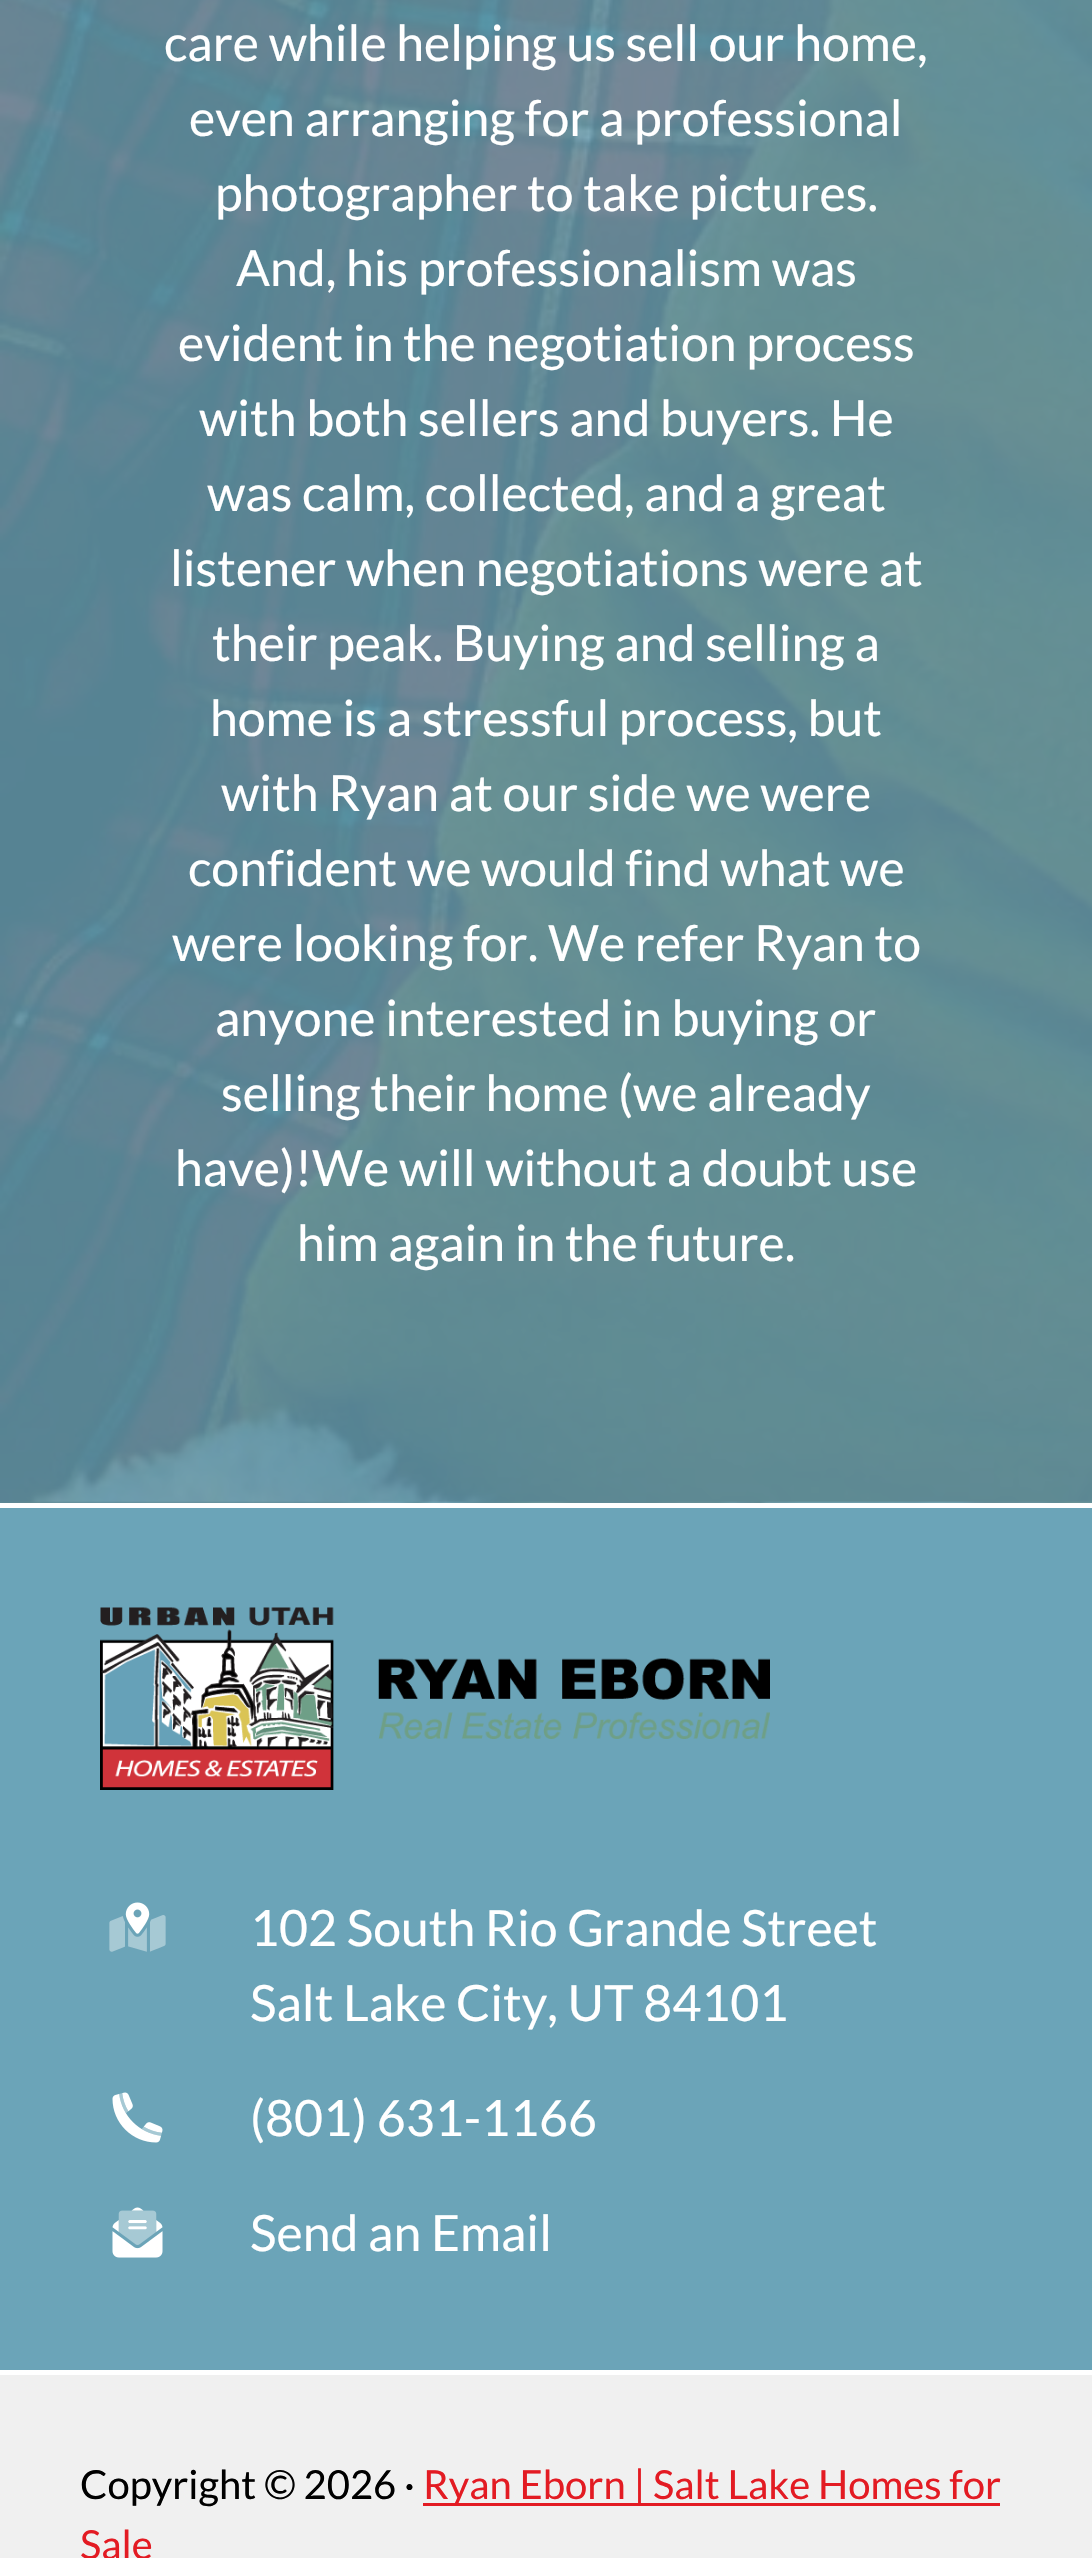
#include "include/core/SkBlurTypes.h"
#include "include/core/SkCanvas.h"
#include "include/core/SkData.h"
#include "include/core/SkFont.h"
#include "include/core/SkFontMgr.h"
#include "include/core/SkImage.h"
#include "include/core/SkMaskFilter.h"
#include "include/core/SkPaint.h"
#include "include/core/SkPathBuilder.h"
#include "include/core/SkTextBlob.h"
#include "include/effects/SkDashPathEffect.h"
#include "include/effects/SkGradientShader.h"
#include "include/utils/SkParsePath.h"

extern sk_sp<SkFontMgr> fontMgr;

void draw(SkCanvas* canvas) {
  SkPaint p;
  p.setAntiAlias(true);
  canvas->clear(SkColorSetRGB(107, 164, 184));
  canvas->drawImageRect(SkImages::DeferredFromEncodedData(SkData::MakeFromFileName("images/1.png")), SkRect::MakeLTRB(0, 0, 1092, 1503), SkSamplingOptions());
  p.setColor(SK_ColorWHITE);
  canvas->drawRect(SkRect::MakeLTRB(0, 1503, 1092, 1508), p);
  canvas->drawImageRect(SkImages::DeferredFromEncodedData(SkData::MakeFromFileName("images/2.png")), SkRect::MakeLTRB(100, 1607, 770, 1790), SkSamplingOptions());
  canvas->drawImageRect(SkImages::DeferredFromEncodedData(SkData::MakeFromFileName("images/3.png")), SkRect::MakeLTRB(109, 1902, 166, 1952), SkSamplingOptions());
  canvas->drawImageRect(SkImages::DeferredFromEncodedData(SkData::MakeFromFileName("images/4.png")), SkRect::MakeLTRB(112, 2092, 163, 2143), SkSamplingOptions());
  canvas->drawImageRect(SkImages::DeferredFromEncodedData(SkData::MakeFromFileName("images/5.png")), SkRect::MakeLTRB(112, 2207, 163, 2258), SkSamplingOptions());
  p.setColor(SkColorSetRGB(240, 240, 240));
  canvas->drawRect(SkRect::MakeLTRB(0, 2375, 1092, 2558), p);
  p.setColor(SK_ColorWHITE);
  canvas->drawRect(SkRect::MakeLTRB(0, 2370, 1092, 2375), p);
  p.setColor(SkColorSetRGB(227, 27, 35));
  canvas->drawRect(SkRect::MakeLTRB(423, 2503, 1000, 2506), p);
  SkFont font1(fontMgr->matchFamilyStyle("Lato", SkFontStyle::Normal()), 50);
  font1.setSubpixel(true);
  p.setColor(SK_ColorWHITE);
  canvas->drawString("care while helping us sell our home,", 164, 61, font1, p);
  canvas->drawString("even arranging for a professional", 189, 136, font1, p);
  canvas->drawString("photographer to take pictures.", 215, 211, font1, p);
  canvas->drawString("And, his professionalism was", 236, 286, font1, p);
  canvas->drawString("evident in the negotiation process", 178, 361, font1, p);
  canvas->drawString("with both sellers and buyers. He", 199, 436, font1, p);
  canvas->drawString("was calm, collected, and a great", 207, 511, font1, p);
  canvas->drawString("listener when negotiations were at", 170, 586, font1, p);
  canvas->drawString("their peak. Buying and selling a", 212, 661, font1, p);
  canvas->drawString("home is a stressful process, but", 210, 736, font1, p);
  canvas->drawString("with Ryan at our side we were", 221, 811, font1, p);
  canvas->drawString("confident we would find what we", 188, 886, font1, p);
  canvas->drawString("were looking for. We refer Ryan to", 172, 961, font1, p);
  canvas->drawString("anyone interested in buying or", 215, 1036, font1, p);
  canvas->drawString("selling their home (we already", 221, 1111, font1, p);
  canvas->drawString("have)!We will without a doubt use", 175, 1186, font1, p);
  canvas->drawString("him again in the future.", 297, 1261, font1, p);
  canvas->drawString("102 South Rio Grande Street", 250, 1946, font1, p);
  canvas->drawString("Salt Lake City, UT 84101", 250, 2021, font1, p);
  canvas->drawString("(801) 631-1166", 250, 2136, font1, p);
  canvas->drawString("Send an Email", 250, 2251, font1, p);
  SkFont font2(fontMgr->matchFamilyStyle("Lato", SkFontStyle::Normal()), 40);
  font2.setSubpixel(true);
  p.setColor(SK_ColorBLACK);
  canvas->drawString("Copyright © 2026 ·", 80, 2499, font2, p);
  p.setColor(SkColorSetRGB(227, 27, 35));
  canvas->drawString("Ryan Eborn | Salt Lake Homes for", 423, 2499, font2, p);
  canvas->drawString("Sale", 80, 2559, font2, p);
}
